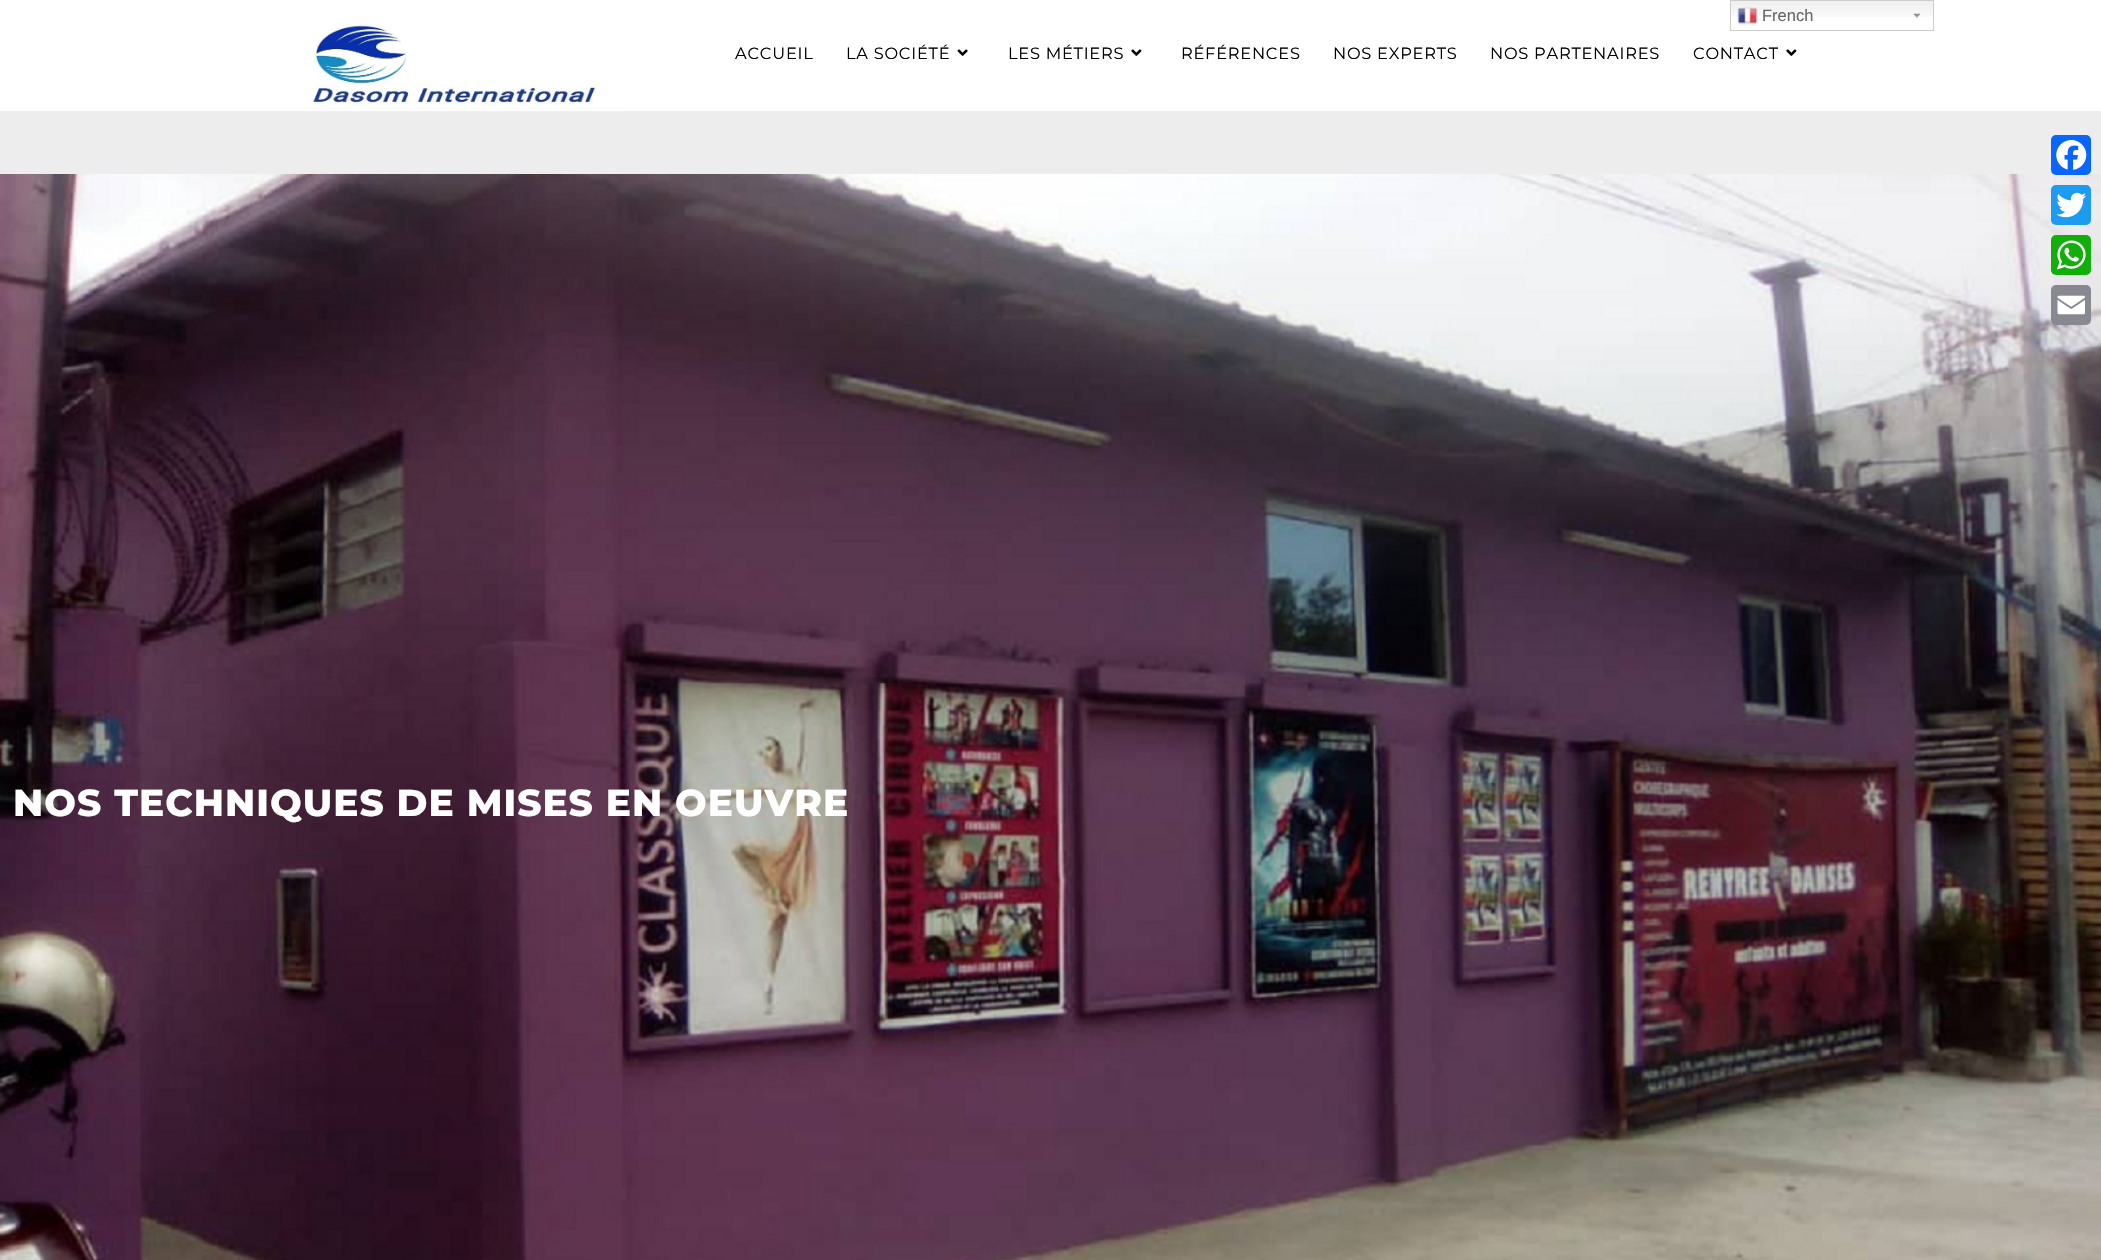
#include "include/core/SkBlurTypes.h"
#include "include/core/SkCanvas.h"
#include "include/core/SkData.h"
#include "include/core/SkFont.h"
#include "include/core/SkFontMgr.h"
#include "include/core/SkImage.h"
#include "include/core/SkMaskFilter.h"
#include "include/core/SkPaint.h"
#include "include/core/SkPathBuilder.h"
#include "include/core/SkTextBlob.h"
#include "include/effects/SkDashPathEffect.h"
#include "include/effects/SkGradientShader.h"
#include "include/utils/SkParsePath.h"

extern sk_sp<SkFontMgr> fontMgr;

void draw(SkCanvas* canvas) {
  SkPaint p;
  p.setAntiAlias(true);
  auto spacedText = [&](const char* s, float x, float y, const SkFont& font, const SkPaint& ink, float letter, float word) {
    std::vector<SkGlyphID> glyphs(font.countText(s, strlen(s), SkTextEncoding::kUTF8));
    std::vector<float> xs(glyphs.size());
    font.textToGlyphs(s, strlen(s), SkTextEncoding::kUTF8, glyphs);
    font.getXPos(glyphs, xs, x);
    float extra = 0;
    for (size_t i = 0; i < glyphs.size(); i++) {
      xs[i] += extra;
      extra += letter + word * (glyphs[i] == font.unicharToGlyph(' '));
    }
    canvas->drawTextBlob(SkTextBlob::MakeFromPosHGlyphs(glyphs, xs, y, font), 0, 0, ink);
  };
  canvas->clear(SkColorSetRGB(237, 237, 237));
  p.setColor(SK_ColorWHITE);
  canvas->drawRect(SkRect::MakeLTRB(0, 0, 2101, 111), p);
  canvas->drawImageRect(SkImages::DeferredFromEncodedData(SkData::MakeFromFileName("images/1.png")), SkRect::MakeLTRB(1731, 1, 1933, 17), SkSamplingOptions());
  canvas->drawImageRect(SkImages::DeferredFromEncodedData(SkData::MakeFromFileName("images/2.png")), SkRect::MakeLTRB(1913, 13, 1920, 18), SkSamplingOptions());
  p.setStyle(SkPaint::kStroke_Style);
  p.setStrokeWidth(1);
  p.setColor(SkColorSetRGB(204, 204, 204));
  canvas->drawRect(SkRect::MakeLTRB(1730.5f, 0.5f, 1933.5f, 30.5f), p);
  canvas->drawImageRect(SkImages::DeferredFromEncodedData(SkData::MakeFromFileName("images/3.png")), SkRect::MakeLTRB(1737, 7, 1758, 25), SkSamplingOptions());
  canvas->drawImageRect(SkImages::DeferredFromEncodedData(SkData::MakeFromFileName("images/4.png")), SkRect::MakeLTRB(302, 21, 625, 112), SkSamplingOptions());
  canvas->drawImageRect(SkImages::DeferredFromEncodedData(SkData::MakeFromFileName("images/5.png")), SkRect::MakeLTRB(957, 49, 968, 56), SkSamplingOptions());
  canvas->drawImageRect(SkImages::DeferredFromEncodedData(SkData::MakeFromFileName("images/6.png")), SkRect::MakeLTRB(1131, 49, 1142, 56), SkSamplingOptions());
  canvas->drawImageRect(SkImages::DeferredFromEncodedData(SkData::MakeFromFileName("images/6.png")), SkRect::MakeLTRB(1786, 49, 1797, 56), SkSamplingOptions());
  canvas->drawImageRect(SkImages::DeferredFromEncodedData(SkData::MakeFromFileName("images/7.png")), SkRect::MakeLTRB(0, 174, 2101, 1260), SkSamplingOptions());
  p.setStyle(SkPaint::kFill_Style);
  p.setColor(SkColorSetRGB(8, 102, 255));
  canvas->drawRoundRect(SkRect::MakeLTRB(2051, 135, 2091, 175), 5, 5, p);
  canvas->drawImageRect(SkImages::DeferredFromEncodedData(SkData::MakeFromFileName("images/8.png")), SkRect::MakeLTRB(2056, 140, 2087, 170), SkSamplingOptions());
  p.setColor(SkColorSetRGB(29, 155, 240));
  canvas->drawRoundRect(SkRect::MakeLTRB(2051, 185, 2091, 225), 5, 5, p);
  canvas->drawImageRect(SkImages::DeferredFromEncodedData(SkData::MakeFromFileName("images/9.png")), SkRect::MakeLTRB(2056, 192, 2087, 218), SkSamplingOptions());
  p.setColor(SkColorSetRGB(18, 175, 10));
  canvas->drawRoundRect(SkRect::MakeLTRB(2051, 235, 2091, 275), 5, 5, p);
  canvas->drawImageRect(SkImages::DeferredFromEncodedData(SkData::MakeFromFileName("images/10.png")), SkRect::MakeLTRB(2057, 240, 2086, 270), SkSamplingOptions());
  p.setColor(SkColorSetRGB(136, 137, 144));
  canvas->drawRoundRect(SkRect::MakeLTRB(2051, 285, 2091, 325), 5, 5, p);
  canvas->drawImageRect(SkImages::DeferredFromEncodedData(SkData::MakeFromFileName("images/11.png")), SkRect::MakeLTRB(2057, 295, 2085, 315), SkSamplingOptions());
  SkFont font1(fontMgr->matchFamilyStyle("Liberation Sans", SkFontStyle::Normal()), 16.5f);
  font1.setSubpixel(true);
  p.setColor(SkColorSetRGB(102, 102, 102));
  canvas->drawString("French", 1762, 21, font1, p);
  SkFont font2(fontMgr->matchFamilyStyle("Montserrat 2", SkFontStyle(100, SkFontStyle::kNormal_Width, SkFontStyle::kUpright_Slant)), 16.25f);
  font2.setSubpixel(true);
  p.setColor(SK_ColorBLACK);
  spacedText("ACCUEIL", 735, 59, font2, p, 0.75f, 0);
  spacedText("LA SOCIÉTÉ", 846, 59, font2, p, 0.75f, 0);
  spacedText("LES MÉTIERS", 1008, 59, font2, p, 0.75f, 0);
  spacedText("RÉFÉRENCES", 1181, 59, font2, p, 0.75f, 0);
  spacedText("NOS EXPERTS", 1333, 59, font2, p, 0.75f, 0);
  spacedText("NOS PARTENAIRES", 1490, 59, font2, p, 0.75f, 0);
  spacedText("CONTACT", 1693, 59, font2, p, 0.75f, 0);
  SkFont font3(fontMgr->matchFamilyStyle("Montserrat", SkFontStyle(100, SkFontStyle::kNormal_Width, SkFontStyle::kUpright_Slant)), 37.5f);
  font3.setSubpixel(true);
  p.setColor(SK_ColorWHITE);
  spacedText("NOS TECHNIQUES DE MISES EN OEUVRE", 13, 816, font3, p, 1, 0);
}
